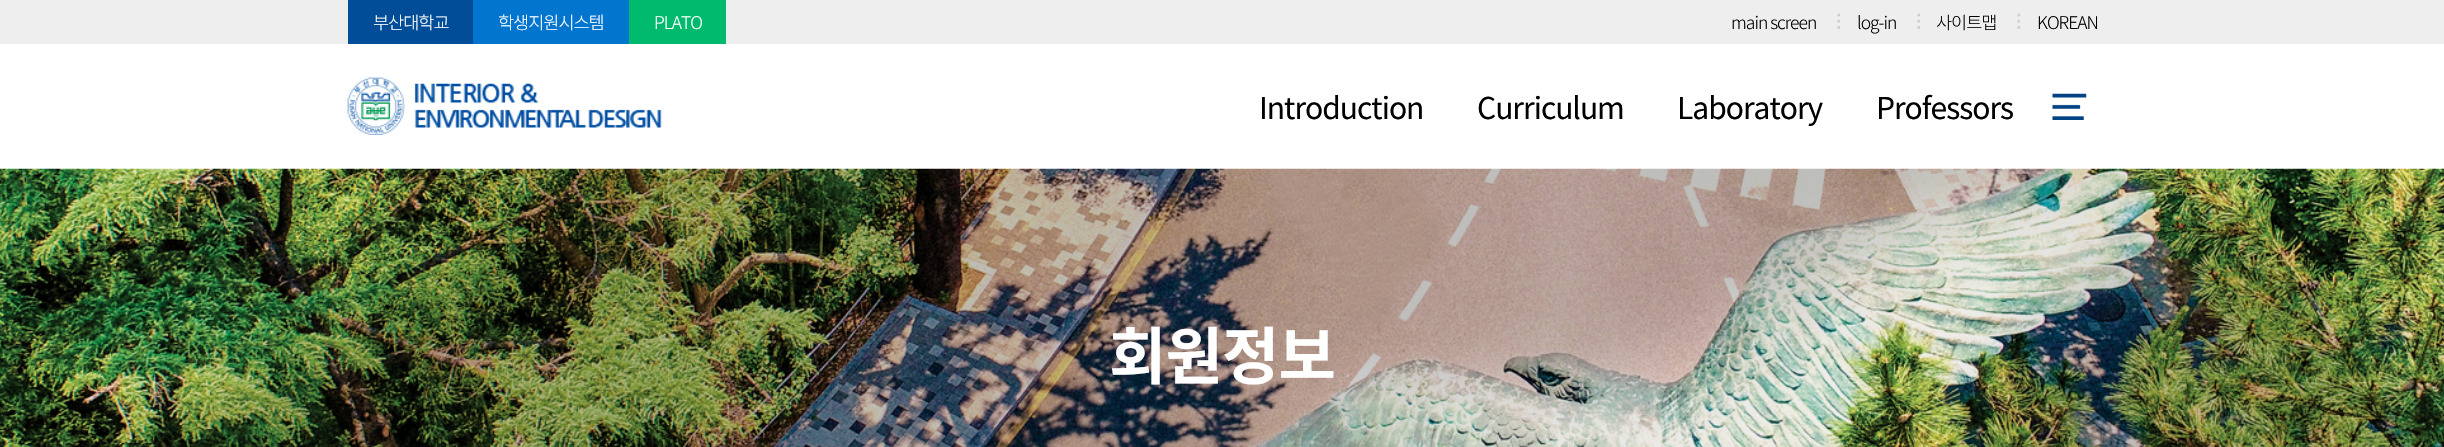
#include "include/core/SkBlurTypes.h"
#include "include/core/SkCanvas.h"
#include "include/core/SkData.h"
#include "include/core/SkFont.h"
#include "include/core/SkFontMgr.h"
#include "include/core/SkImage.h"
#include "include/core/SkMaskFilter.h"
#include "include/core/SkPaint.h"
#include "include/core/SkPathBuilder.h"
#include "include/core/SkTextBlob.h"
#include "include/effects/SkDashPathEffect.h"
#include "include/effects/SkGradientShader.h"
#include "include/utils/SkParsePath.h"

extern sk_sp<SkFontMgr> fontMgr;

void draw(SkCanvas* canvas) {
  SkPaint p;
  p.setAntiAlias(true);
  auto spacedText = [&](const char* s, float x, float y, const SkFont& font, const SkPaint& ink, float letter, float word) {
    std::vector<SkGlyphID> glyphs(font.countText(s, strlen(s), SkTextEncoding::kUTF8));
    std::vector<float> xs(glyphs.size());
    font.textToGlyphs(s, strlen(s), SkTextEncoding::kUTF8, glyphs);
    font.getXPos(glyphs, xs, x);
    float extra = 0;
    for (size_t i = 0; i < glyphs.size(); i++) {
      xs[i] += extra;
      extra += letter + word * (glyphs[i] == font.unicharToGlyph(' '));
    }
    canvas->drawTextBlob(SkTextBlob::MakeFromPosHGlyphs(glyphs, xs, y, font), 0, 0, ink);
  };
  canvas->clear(SK_ColorWHITE);
  p.setColor(SkColorSetRGB(238, 238, 238));
  canvas->drawRect(SkRect::MakeLTRB(0, 0, 2444, 44), p);
  p.setColor(SkColorSetRGB(1, 77, 151));
  canvas->drawRect(SkRect::MakeLTRB(348, 0, 473, 44), p);
  p.setColor(SkColorSetRGB(2, 117, 206));
  canvas->drawRect(SkRect::MakeLTRB(473, 0, 629, 44), p);
  p.setColor(SkColorSetRGB(2, 186, 110));
  canvas->drawRect(SkRect::MakeLTRB(629, 0, 726, 44), p);
  canvas->drawImageRect(SkImages::DeferredFromEncodedData(SkData::MakeFromFileName("images/1.png")), SkRect::MakeLTRB(1837, 13, 1840, 29), SkSamplingOptions());
  canvas->drawImageRect(SkImages::DeferredFromEncodedData(SkData::MakeFromFileName("images/1.png")), SkRect::MakeLTRB(1917, 13, 1920, 29), SkSamplingOptions());
  canvas->drawImageRect(SkImages::DeferredFromEncodedData(SkData::MakeFromFileName("images/1.png")), SkRect::MakeLTRB(2017, 13, 2020, 29), SkSamplingOptions());
  canvas->drawImageRect(SkImages::DeferredFromEncodedData(SkData::MakeFromFileName("images/2.png")), SkRect::MakeLTRB(347, 77, 662, 135), SkSamplingOptions());
  canvas->drawImageRect(SkImages::DeferredFromEncodedData(SkData::MakeFromFileName("images/3.png")), SkRect::MakeLTRB(2052, 93, 2087, 120), SkSamplingOptions());
  canvas->drawImageRect(SkImages::DeferredFromEncodedData(SkData::MakeFromFileName("images/4.png")), SkRect::MakeLTRB(0, 168, 2444, 447), SkSamplingOptions());
  SkFont font1(fontMgr->matchFamilyStyle("Noto Sans KR", SkFontStyle(300, SkFontStyle::kNormal_Width, SkFontStyle::kUpright_Slant)), 17.5f);
  font1.setSubpixel(true);
  p.setColor(SK_ColorWHITE);
  spacedText("부산대학교", 373, 29, font1, p, -1, 0);
  spacedText("학생지원시스템", 498, 29, font1, p, -1, 0);
  spacedText("PLATO", 654, 29, font1, p, -1, 0);
  p.setColor(SK_ColorBLACK);
  spacedText("main screen", 1731, 29, font1, p, -1, 0);
  spacedText("log-in", 1857, 29, font1, p, -1, 0);
  spacedText("사이트맵", 1936, 29, font1, p, -1, 0);
  spacedText("KOREAN", 2037, 29, font1, p, -1, 0);
  SkFont font2(fontMgr->matchFamilyStyle("Noto Sans KR", SkFontStyle::Normal()), 30);
  font2.setSubpixel(true);
  spacedText("Introduction", 1259, 119, font2, p, -1, 0);
  spacedText("Curriculum", 1477, 119, font2, p, -1, 0);
  spacedText("Laboratory", 1677, 119, font2, p, -1, 0);
  spacedText("Professors", 1876, 119, font2, p, -1, 0);
  SkFont font3(fontMgr->matchFamilyStyle("Noto Sans KR", SkFontStyle::Bold()), 62.5f);
  font3.setSubpixel(true);
  p.setColor(SK_ColorWHITE);
  spacedText("회원정보", 1109, 379, font3, p, -1, 0);
}
